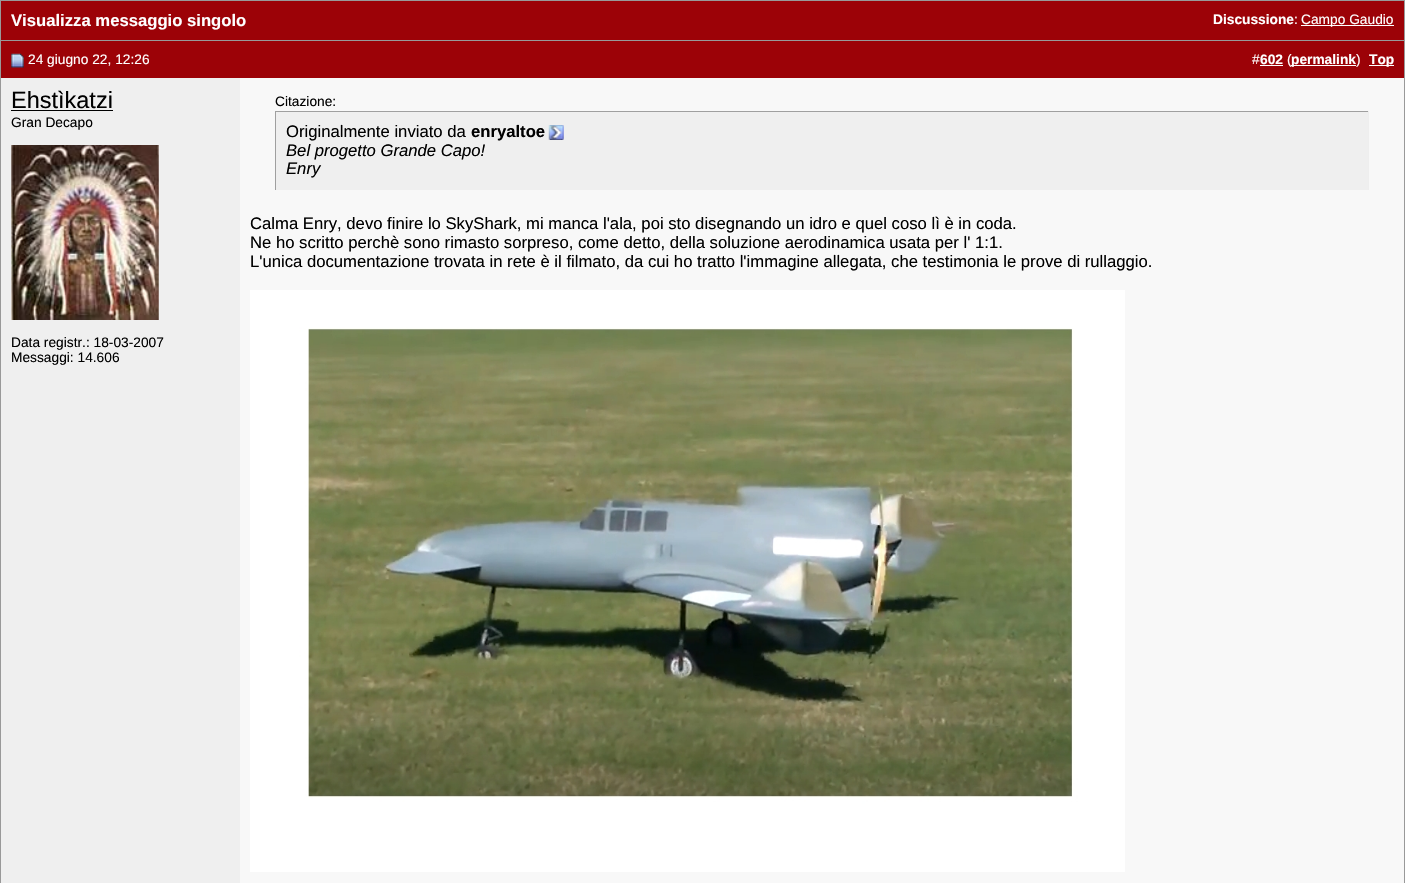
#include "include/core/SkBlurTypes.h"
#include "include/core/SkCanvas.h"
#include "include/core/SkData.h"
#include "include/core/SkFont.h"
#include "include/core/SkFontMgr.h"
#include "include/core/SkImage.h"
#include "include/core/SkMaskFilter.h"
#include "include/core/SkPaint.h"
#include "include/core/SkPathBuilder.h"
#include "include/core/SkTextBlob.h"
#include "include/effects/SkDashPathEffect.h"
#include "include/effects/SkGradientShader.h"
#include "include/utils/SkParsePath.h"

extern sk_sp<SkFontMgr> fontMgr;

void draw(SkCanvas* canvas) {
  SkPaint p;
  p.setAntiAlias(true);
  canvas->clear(SkColorSetRGB(153, 153, 153));
  p.setColor(SkColorSetRGB(156, 2, 7));
  canvas->drawRect(SkRect::MakeLTRB(1, 1, 1404, 40), p);
  p.setColor(SK_ColorWHITE);
  canvas->drawRect(SkRect::MakeLTRB(1301, 25, 1394, 26), p);
  p.setColor(SkColorSetRGB(156, 2, 7));
  canvas->drawRect(SkRect::MakeLTRB(1, 41, 1404, 78), p);
  canvas->drawImageRect(SkImages::DeferredFromEncodedData(SkData::MakeFromFileName("images/1.png")), SkRect::MakeLTRB(11, 53, 24, 68), SkSamplingOptions());
  p.setColor(SK_ColorWHITE);
  canvas->drawRect(SkRect::MakeLTRB(1260, 65, 1283, 66), p);
  canvas->drawRect(SkRect::MakeLTRB(1291, 65, 1356, 66), p);
  canvas->drawRect(SkRect::MakeLTRB(1369, 65, 1394, 66), p);
  p.setColor(SkColorSetRGB(239, 239, 239));
  canvas->drawRect(SkRect::MakeLTRB(1, 78, 240, 883), p);
  p.setColor(SK_ColorBLACK);
  canvas->drawRect(SkRect::MakeLTRB(11, 110, 113, 111), p);
  canvas->drawImageRect(SkImages::DeferredFromEncodedData(SkData::MakeFromFileName("images/2.png")), SkRect::MakeLTRB(11, 145, 159, 320), SkSamplingOptions());
  p.setColor(SkColorSetRGB(248, 248, 248));
  canvas->drawRect(SkRect::MakeLTRB(240, 78, 1404, 883), p);
  p.setColor(SkColorSetRGB(239, 239, 239));
  canvas->drawRect(SkRect::MakeLTRB(276, 112, 1368, 190), p);
  p.setColor(SkColorSetRGB(159, 159, 159));
  canvas->drawRect(SkRect::MakeLTRB(275, 111, 1369, 112), p);
  p.setColor(SkColorSetRGB(238, 238, 238));
  canvas->drawRect(SkRect::MakeLTRB(1368, 111, 1369, 190), p);
  p.setColor(SkColorSetRGB(159, 159, 159));
  canvas->drawRect(SkRect::MakeLTRB(275, 111, 276, 190), p);
  canvas->drawImageRect(SkImages::DeferredFromEncodedData(SkData::MakeFromFileName("images/3.png")), SkRect::MakeLTRB(548, 125, 564, 140), SkSamplingOptions());
  canvas->drawImageRect(SkImages::DeferredFromEncodedData(SkData::MakeFromFileName("images/4.png")), SkRect::MakeLTRB(250, 290, 1125, 872), SkSamplingOptions());
  SkFont font1(fontMgr->matchFamilyStyle("Liberation Sans", SkFontStyle::Bold()), 16.67f);
  font1.setSubpixel(true);
  p.setColor(SK_ColorWHITE);
  canvas->drawString("Visualizza messaggio singolo", 11, 26, font1, p);
  SkFont font2(fontMgr->matchFamilyStyle("Liberation Sans", SkFontStyle::Bold()), 13.75f);
  font2.setSubpixel(true);
  canvas->drawString("Discussione", 1213, 24, font2, p);
  SkFont font3(fontMgr->matchFamilyStyle("Liberation Sans", SkFontStyle::Normal()), 13.75f);
  font3.setSubpixel(true);
  canvas->drawString(":", 1294, 24, font3, p);
  canvas->drawString("Campo Gaudio", 1301, 24, font3, p);
  canvas->drawString("24 giugno 22, 12:26", 28, 64, font3, p);
  canvas->drawString("#", 1252, 64, font3, p);
  canvas->drawString("602", 1260, 64, font2, p);
  canvas->drawString("(", 1287, 64, font3, p);
  canvas->drawString("permalink", 1291, 64, font2, p);
  canvas->drawString(")", 1356, 64, font3, p);
  canvas->drawString("Top", 1369, 64, font2, p);
  SkFont font4(fontMgr->matchFamilyStyle("Liberation Sans", SkFontStyle::Normal()), 23.5f);
  font4.setSubpixel(true);
  p.setColor(SK_ColorBLACK);
  canvas->drawString("Ehstìkatzi", 11, 108, font4, p);
  canvas->drawString("Gran Decapo", 11, 127, font3, p);
  canvas->drawString("Data registr.: 18-03-2007", 11, 347, font3, p);
  canvas->drawString("Messaggi: 14.606", 11, 362, font3, p);
  canvas->drawString("Citazione:", 275, 106, font3, p);
  SkFont font5(fontMgr->matchFamilyStyle("Liberation Sans", SkFontStyle::Normal()), 16.67f);
  font5.setSubpixel(true);
  canvas->drawString("Originalmente inviato da", 286, 137, font5, p);
  canvas->drawString("enryaltoe", 471, 137, font1, p);
  SkFont font6(fontMgr->matchFamilyStyle("Liberation Sans", SkFontStyle::Italic()), 16.67f);
  font6.setSubpixel(true);
  canvas->drawString("Bel progetto Grande Capo!", 286, 156, font6, p);
  canvas->drawString("Enry", 286, 174, font6, p);
  canvas->drawString("Calma Enry, devo finire lo SkyShark, mi manca l'ala, poi sto disegnando un idro e quel coso lì è in coda.", 250, 229, font5, p);
  canvas->drawString("Ne ho scritto perchè sono rimasto sorpreso, come detto, della soluzione aerodinamica usata per l' 1:1.", 250, 248, font5, p);
  canvas->drawString("L'unica documentazione trovata in rete è il filmato, da cui ho tratto l'immagine allegata, che testimonia le prove di rullaggio.", 250, 267, font5, p);
}
